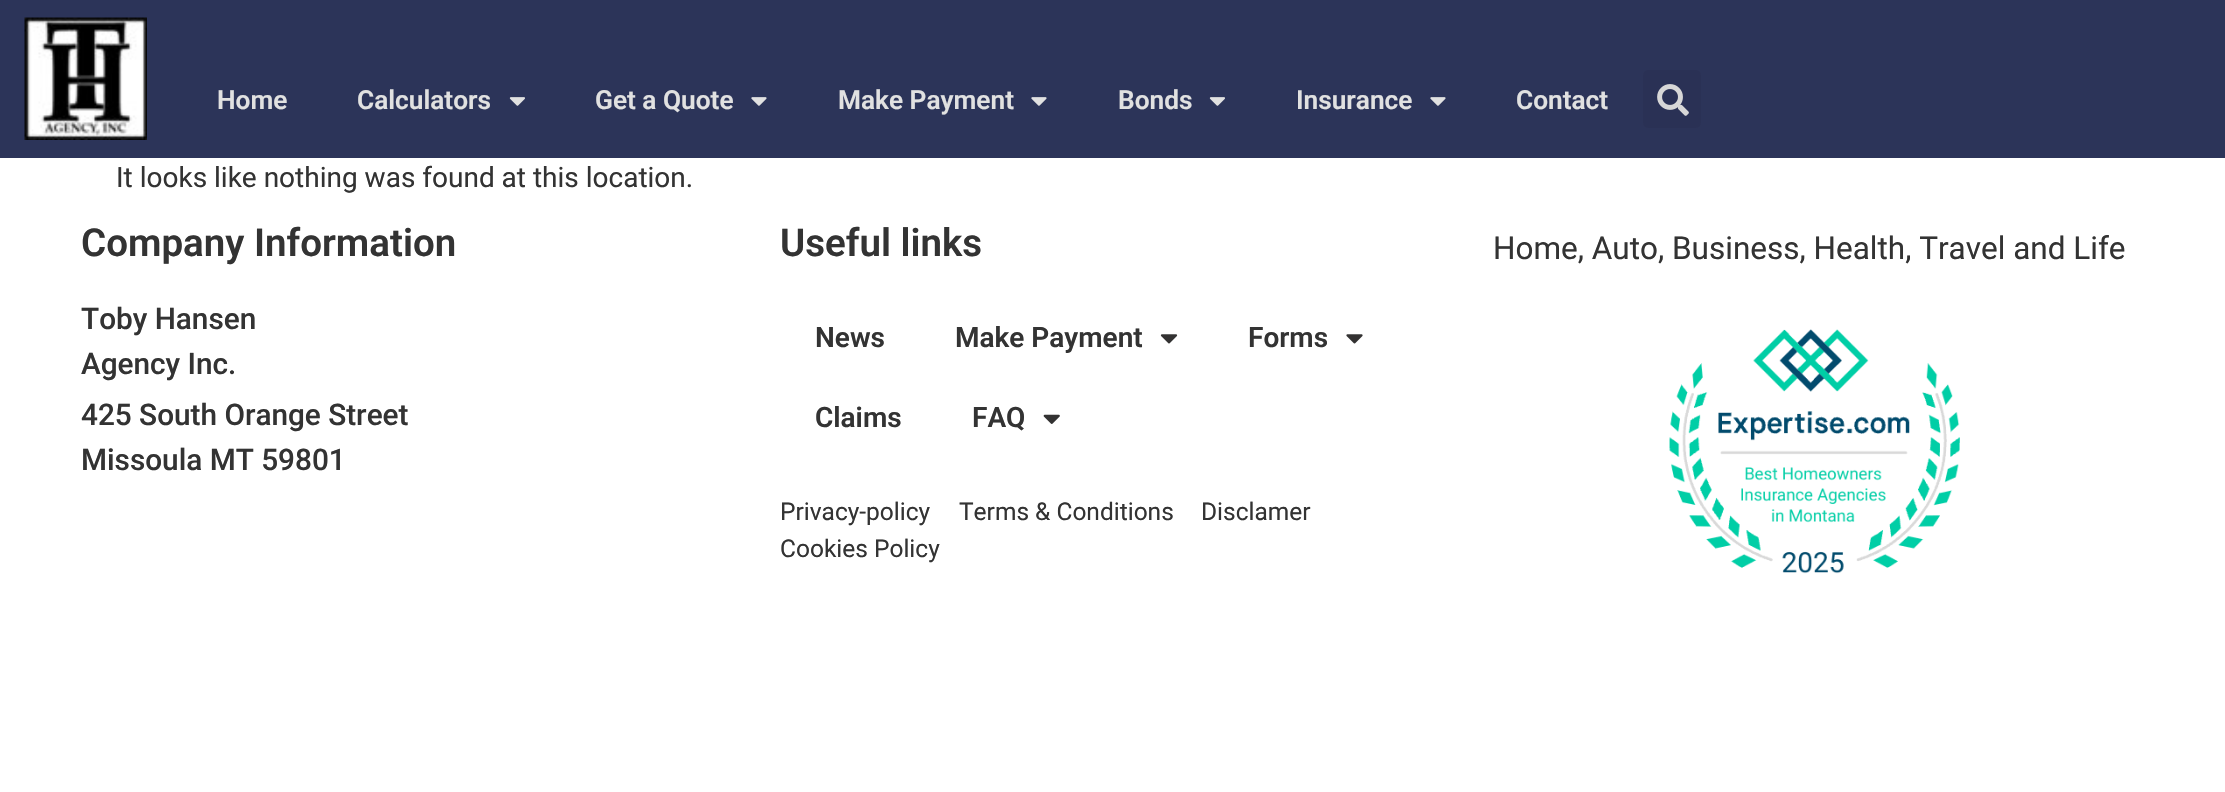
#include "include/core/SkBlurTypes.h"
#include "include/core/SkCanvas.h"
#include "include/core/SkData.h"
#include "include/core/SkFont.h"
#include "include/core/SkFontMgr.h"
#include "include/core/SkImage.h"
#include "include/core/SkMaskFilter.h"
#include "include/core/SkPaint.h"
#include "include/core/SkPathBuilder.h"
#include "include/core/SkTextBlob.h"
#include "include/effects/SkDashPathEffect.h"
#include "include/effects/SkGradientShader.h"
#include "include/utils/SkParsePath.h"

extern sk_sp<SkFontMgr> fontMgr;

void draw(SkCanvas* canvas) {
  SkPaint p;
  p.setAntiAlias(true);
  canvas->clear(SK_ColorWHITE);
  p.setColor(SkColorSetRGB(44, 52, 89));
  canvas->drawRect(SkRect::MakeLTRB(0, 0, 2225, 158), p);
  canvas->drawImageRect(SkImages::DeferredFromEncodedData(SkData::MakeFromFileName("images/1.png")), SkRect::MakeLTRB(24, 17, 147, 140), SkSamplingOptions());
  canvas->drawImageRect(SkImages::DeferredFromEncodedData(SkData::MakeFromFileName("images/2.png")), SkRect::MakeLTRB(509, 97, 525, 106), SkSamplingOptions());
  canvas->drawImageRect(SkImages::DeferredFromEncodedData(SkData::MakeFromFileName("images/3.png")), SkRect::MakeLTRB(751, 97, 767, 106), SkSamplingOptions());
  canvas->drawImageRect(SkImages::DeferredFromEncodedData(SkData::MakeFromFileName("images/3.png")), SkRect::MakeLTRB(1031, 97, 1047, 106), SkSamplingOptions());
  canvas->drawImageRect(SkImages::DeferredFromEncodedData(SkData::MakeFromFileName("images/2.png")), SkRect::MakeLTRB(1209, 97, 1225, 106), SkSamplingOptions());
  canvas->drawImageRect(SkImages::DeferredFromEncodedData(SkData::MakeFromFileName("images/3.png")), SkRect::MakeLTRB(1430, 97, 1446, 106), SkSamplingOptions());
  p.setColor(SkColorSetRGB(42, 49, 85));
  canvas->drawRoundRect(SkRect::MakeLTRB(1643, 70, 1701, 128), 5, 5, p);
  canvas->drawImageRect(SkImages::DeferredFromEncodedData(SkData::MakeFromFileName("images/4.png")), SkRect::MakeLTRB(1657, 84, 1689, 116), SkSamplingOptions());
  canvas->drawImageRect(SkImages::DeferredFromEncodedData(SkData::MakeFromFileName("images/5.png")), SkRect::MakeLTRB(1160, 334, 1178, 344), SkSamplingOptions());
  canvas->drawImageRect(SkImages::DeferredFromEncodedData(SkData::MakeFromFileName("images/6.png")), SkRect::MakeLTRB(1346, 334, 1363, 344), SkSamplingOptions());
  canvas->drawImageRect(SkImages::DeferredFromEncodedData(SkData::MakeFromFileName("images/7.png")), SkRect::MakeLTRB(1043, 414, 1060, 424), SkSamplingOptions());
  canvas->drawImageRect(SkImages::DeferredFromEncodedData(SkData::MakeFromFileName("images/8.png")), SkRect::MakeLTRB(1669, 329, 1960, 574), SkSamplingOptions());
  SkFont font1(fontMgr->matchFamilyStyle("Roboto", SkFontStyle(600, SkFontStyle::kNormal_Width, SkFontStyle::kUpright_Slant)), 26.25f);
  font1.setSubpixel(true);
  p.setColor(SkColorSetRGB(225, 225, 225));
  canvas->drawString("Home", 217, 109, font1, p);
  canvas->drawString("Calculators", 357, 109, font1, p);
  canvas->drawString("Get a Quote", 595, 109, font1, p);
  canvas->drawString("Make Payment", 838, 109, font1, p);
  canvas->drawString("Bonds", 1118, 109, font1, p);
  canvas->drawString("Insurance", 1296, 109, font1, p);
  canvas->drawString("Contact", 1516, 109, font1, p);
  SkFont font2(fontMgr->matchFamilyStyle("Roboto", SkFontStyle::Normal()), 28);
  font2.setSubpixel(true);
  p.setColor(SkColorSetRGB(51, 51, 51));
  canvas->drawString("It looks like nothing was found at this location.", 116, 187, font2, p);
  SkFont font3(fontMgr->matchFamilyStyle("Roboto", SkFontStyle(600, SkFontStyle::kNormal_Width, SkFontStyle::kUpright_Slant)), 38.5f);
  font3.setSubpixel(true);
  canvas->drawString("Company Information", 81, 256, font3, p);
  SkFont font4(fontMgr->matchFamilyStyle("Roboto", SkFontStyle(500, SkFontStyle::kNormal_Width, SkFontStyle::kUpright_Slant)), 29.75f);
  font4.setSubpixel(true);
  canvas->drawString("Toby Hansen", 81, 329, font4, p);
  canvas->drawString("Agency Inc.", 81, 374, font4, p);
  canvas->drawString("425 South Orange Street", 81, 425, font4, p);
  canvas->drawString("Missoula MT 59801", 81, 470, font4, p);
  canvas->drawString("Useful links", 780, 256, font3, p);
  SkFont font5(fontMgr->matchFamilyStyle("Roboto", SkFontStyle(600, SkFontStyle::kNormal_Width, SkFontStyle::kUpright_Slant)), 28);
  font5.setSubpixel(true);
  canvas->drawString("News", 815, 347, font5, p);
  canvas->drawString("Make Payment", 955, 347, font5, p);
  canvas->drawString("Forms", 1248, 347, font5, p);
  canvas->drawString("Claims", 815, 427, font5, p);
  canvas->drawString("FAQ", 972, 427, font5, p);
  SkFont font6(fontMgr->matchFamilyStyle("Roboto", SkFontStyle::Normal()), 24.5f);
  font6.setSubpixel(true);
  canvas->drawString("Privacy-policy", 780, 520, font6, p);
  canvas->drawString("Terms & Conditions", 959, 520, font6, p);
  canvas->drawString("Disclamer", 1201, 520, font6, p);
  canvas->drawString("Cookies Policy", 780, 557, font6, p);
  SkFont font7(fontMgr->matchFamilyStyle("Roboto", SkFontStyle::Normal()), 31.5f);
  font7.setSubpixel(true);
  canvas->drawString("Home, Auto, Business, Health, Travel and Life", 1493, 259, font7, p);
}
